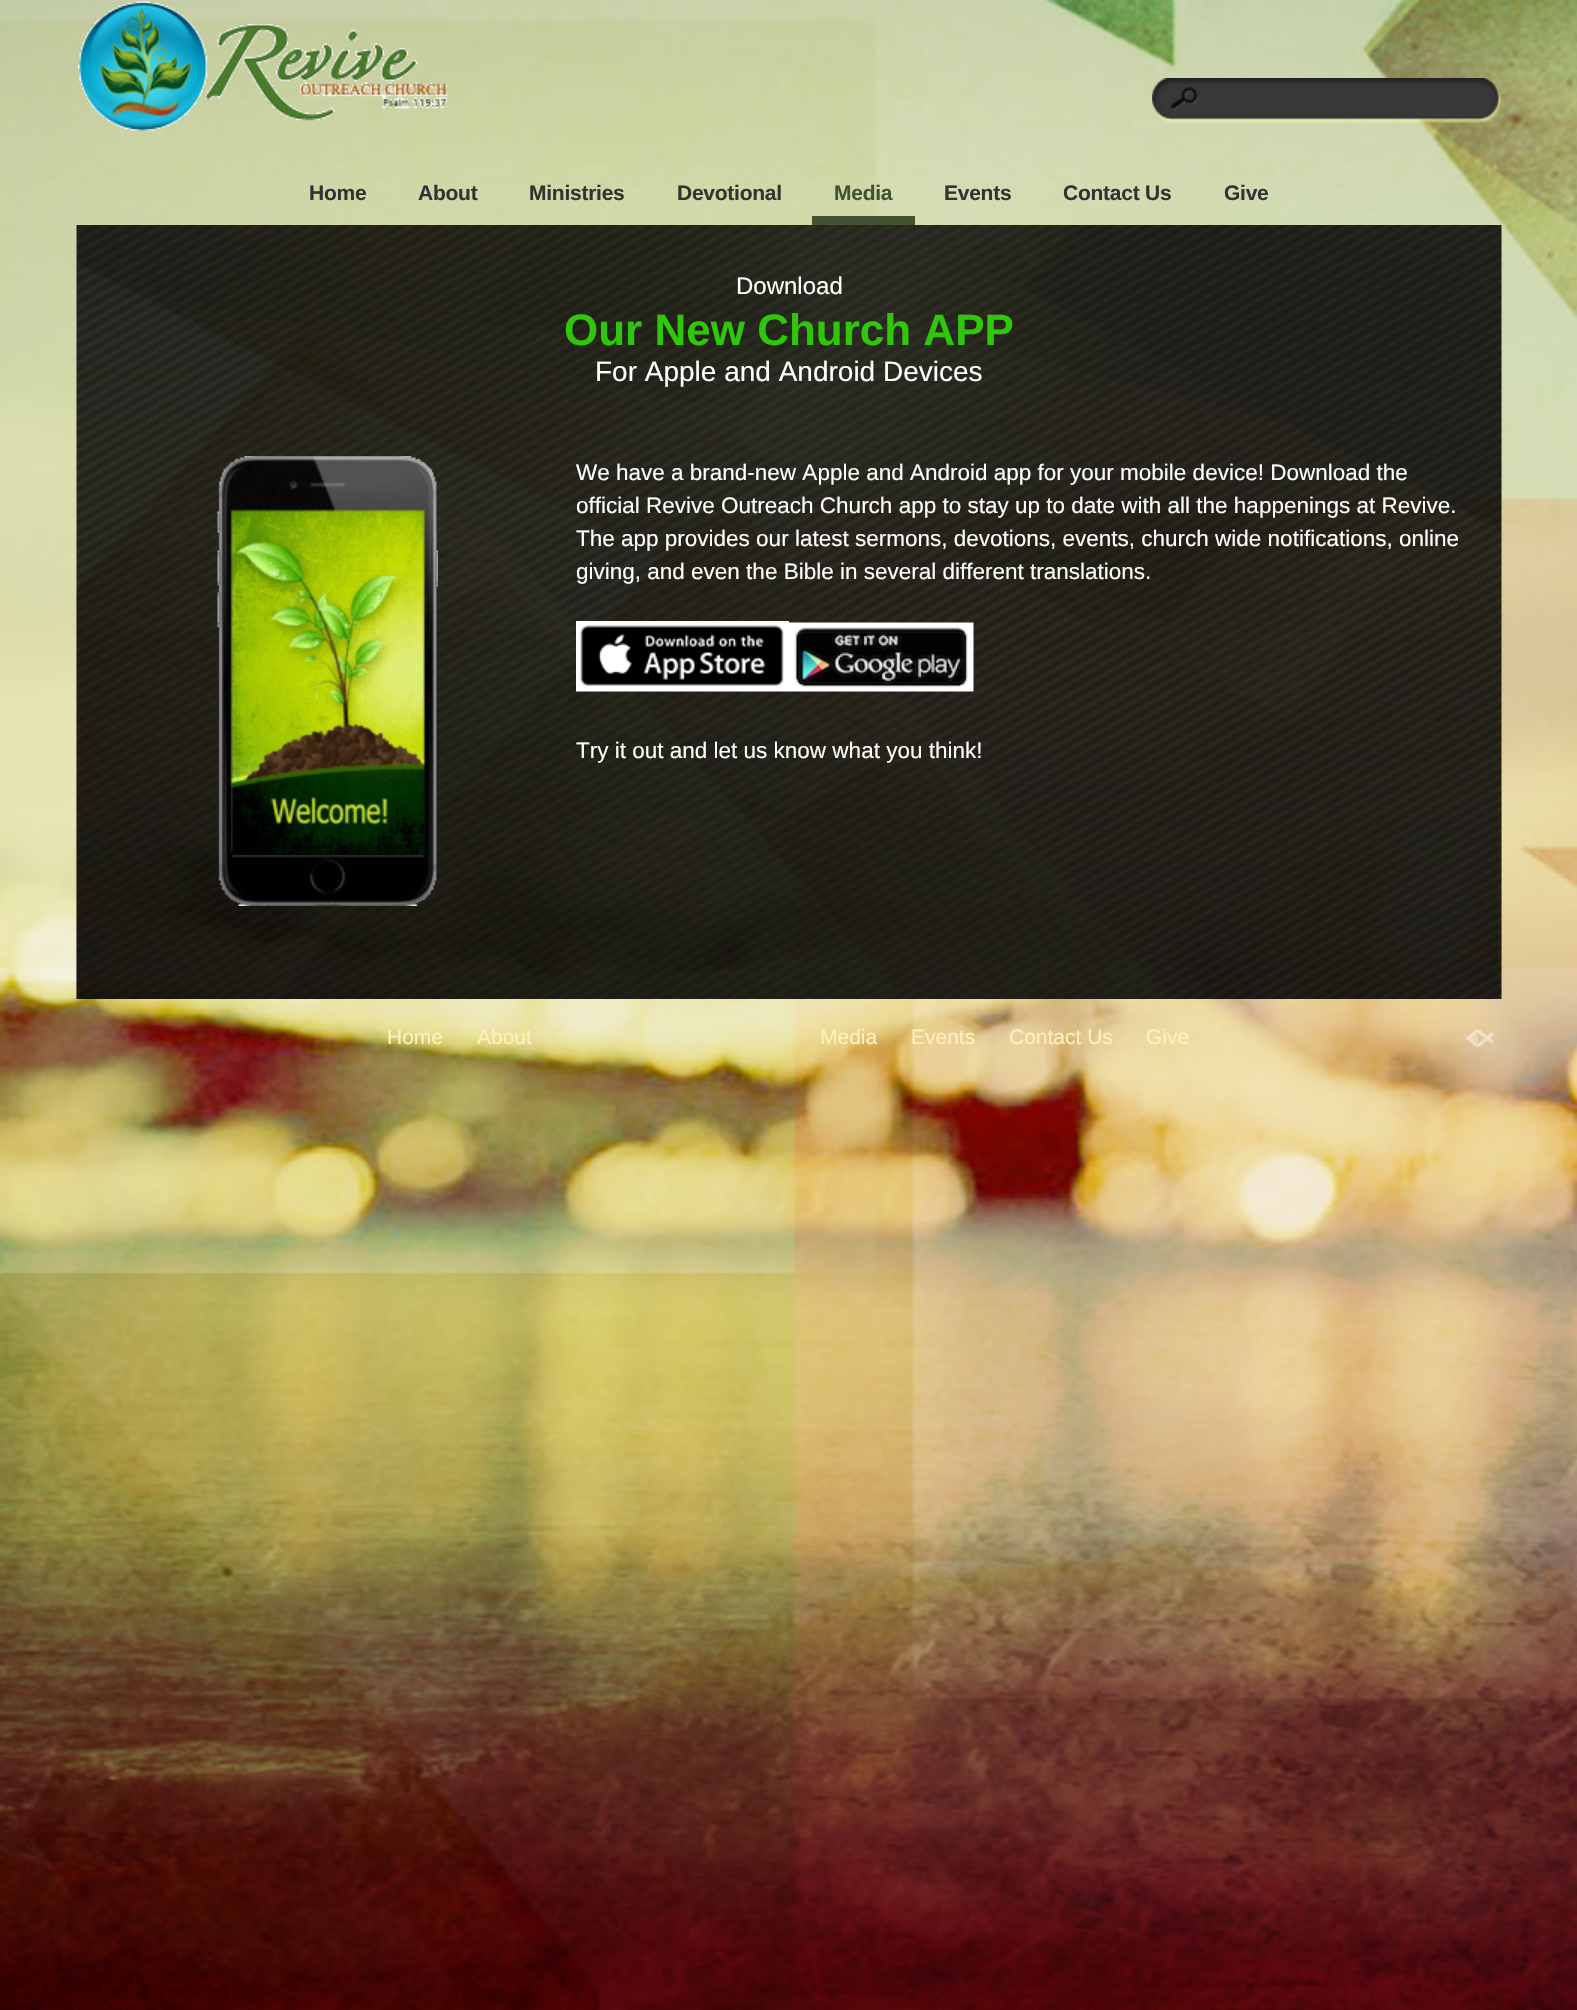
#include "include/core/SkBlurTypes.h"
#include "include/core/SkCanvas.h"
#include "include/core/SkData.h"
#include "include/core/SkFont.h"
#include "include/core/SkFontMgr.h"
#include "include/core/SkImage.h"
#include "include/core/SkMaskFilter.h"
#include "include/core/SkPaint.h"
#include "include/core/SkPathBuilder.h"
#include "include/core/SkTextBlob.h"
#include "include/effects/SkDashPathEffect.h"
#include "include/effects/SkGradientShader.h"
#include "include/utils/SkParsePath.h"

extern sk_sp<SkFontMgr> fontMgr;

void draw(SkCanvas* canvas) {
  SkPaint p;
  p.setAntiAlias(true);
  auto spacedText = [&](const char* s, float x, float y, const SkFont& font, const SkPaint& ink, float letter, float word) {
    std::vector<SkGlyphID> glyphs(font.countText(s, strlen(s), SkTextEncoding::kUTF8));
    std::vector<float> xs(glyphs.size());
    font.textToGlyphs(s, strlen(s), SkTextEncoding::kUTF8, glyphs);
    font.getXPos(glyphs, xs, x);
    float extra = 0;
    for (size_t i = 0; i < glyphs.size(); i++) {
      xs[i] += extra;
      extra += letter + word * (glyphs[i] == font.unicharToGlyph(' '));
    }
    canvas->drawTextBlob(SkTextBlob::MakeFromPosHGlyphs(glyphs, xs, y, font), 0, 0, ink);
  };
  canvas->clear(SK_ColorWHITE);
  canvas->drawImageRect(SkImages::DeferredFromEncodedData(SkData::MakeFromFileName("images/1.png")), SkRect::MakeLTRB(0, 0, 1577, 2010), SkSamplingOptions());
  canvas->drawImageRect(SkImages::DeferredFromEncodedData(SkData::MakeFromFileName("images/2.png")), SkRect::MakeLTRB(77, 1, 448, 131), SkSamplingOptions());
  canvas->drawImageRect(SkImages::DeferredFromEncodedData(SkData::MakeFromFileName("images/3.png")), SkRect::MakeLTRB(1152, 78, 1502, 123), SkSamplingOptions());
  p.setColor(SkColorSetRGB(65, 84, 49));
  canvas->drawRect(SkRect::MakeLTRB(812, 216, 915, 225), p);
  canvas->drawImageRect(SkImages::DeferredFromEncodedData(SkData::MakeFromFileName("images/4.png")), SkRect::MakeLTRB(76, 225, 1502, 999), SkSamplingOptions());
  canvas->drawImageRect(SkImages::DeferredFromEncodedData(SkData::MakeFromFileName("images/5.png")), SkRect::MakeLTRB(217, 456, 438, 906), SkSamplingOptions());
  canvas->drawImageRect(SkImages::DeferredFromEncodedData(SkData::MakeFromFileName("images/6.png")), SkRect::MakeLTRB(576, 621, 789, 692), SkSamplingOptions());
  canvas->drawImageRect(SkImages::DeferredFromEncodedData(SkData::MakeFromFileName("images/7.png")), SkRect::MakeLTRB(789, 622, 974, 692), SkSamplingOptions());
  canvas->drawImageRect(SkImages::DeferredFromEncodedData(SkData::MakeFromFileName("images/8.png")), SkRect::MakeLTRB(1465, 1029, 1494, 1048), SkSamplingOptions());
  SkFont font1(fontMgr->matchFamilyStyle("Liberation Sans", SkFontStyle::Bold()), 21);
  font1.setSubpixel(true);
  p.setColor(SkColorSetRGB(51, 51, 51));
  spacedText("Home", 309, 200, font1, p, -0.25f, 0);
  spacedText("About", 418, 200, font1, p, -0.25f, 0);
  spacedText("Ministries", 529, 200, font1, p, -0.25f, 0);
  spacedText("Devotional", 677, 200, font1, p, -0.25f, 0);
  p.setColor(SkColorSetRGB(65, 84, 49));
  spacedText("Media", 834, 200, font1, p, -0.25f, 0);
  p.setColor(SkColorSetRGB(51, 51, 51));
  spacedText("Events", 944, 200, font1, p, -0.25f, 0);
  spacedText("Contact Us", 1063, 200, font1, p, -0.25f, 0);
  spacedText("Give", 1224, 200, font1, p, -0.25f, 0);
  SkFont font2(fontMgr->matchFamilyStyle("Liberation Sans", SkFontStyle::Normal()), 24);
  font2.setSubpixel(true);
  p.setColor(SK_ColorWHITE);
  canvas->drawString("Download", 736, 294, font2, p);
  SkFont font3(fontMgr->matchFamilyStyle("Liberation Sans", SkFontStyle::Bold()), 44);
  font3.setSubpixel(true);
  p.setColor(SkColorSetRGB(48, 199, 10));
  canvas->drawString("Our New Church APP", 564, 345, font3, p);
  SkFont font4(fontMgr->matchFamilyStyle("Liberation Sans", SkFontStyle::Normal()), 28);
  font4.setSubpixel(true);
  p.setColor(SK_ColorWHITE);
  canvas->drawString("For Apple and Android Devices", 595, 381, font4, p);
  SkFont font5(fontMgr->matchFamilyStyle("Liberation Sans", SkFontStyle::Normal()), 22.5f);
  font5.setSubpixel(true);
  canvas->drawString("We have a brand-new Apple and Android app for your mobile device! Download the", 576, 480, font5, p);
  canvas->drawString("official Revive Outreach Church app to stay up to date with all the happenings at Revive.", 576, 513, font5, p);
  canvas->drawString("The app provides our latest sermons, devotions, events, church wide notifications, online", 576, 546, font5, p);
  canvas->drawString("giving, and even the Bible in several different translations.", 576, 579, font5, p);
  canvas->drawString("Try it out and let us know what you think!", 576, 758, font5, p);
  SkFont font6(fontMgr->matchFamilyStyle("Liberation Sans", SkFontStyle::Normal()), 21);
  font6.setSubpixel(true);
  p.setColor(SkColorSetRGB(255, 240, 192));
  canvas->drawString("Home", 387, 1044, font6, p);
  canvas->drawString("About", 477, 1044, font6, p);
  canvas->drawString("Media", 820, 1044, font6, p);
  canvas->drawString("Events", 911, 1044, font6, p);
  canvas->drawString("Contact Us", 1009, 1044, font6, p);
  canvas->drawString("Give", 1146, 1044, font6, p);
}
